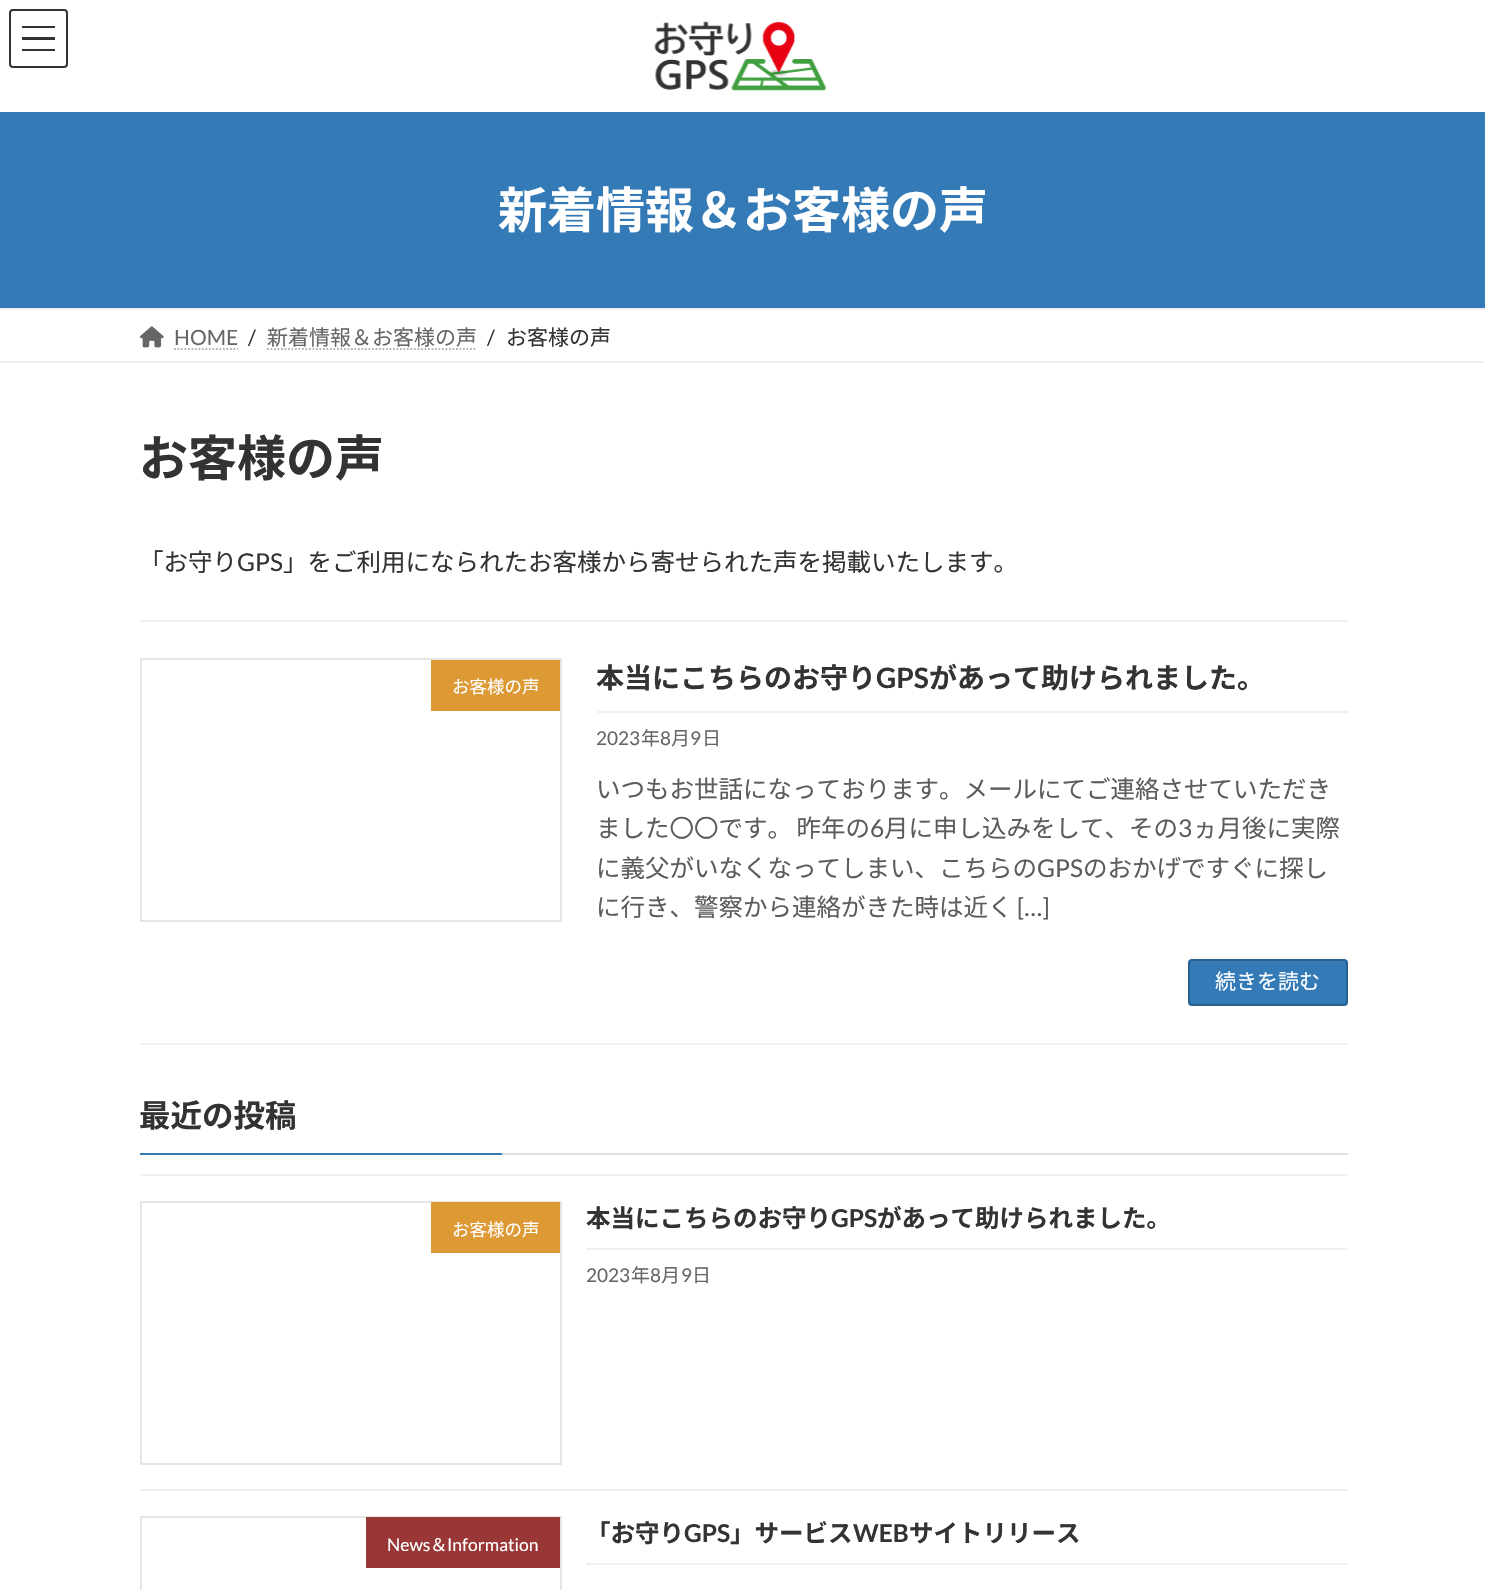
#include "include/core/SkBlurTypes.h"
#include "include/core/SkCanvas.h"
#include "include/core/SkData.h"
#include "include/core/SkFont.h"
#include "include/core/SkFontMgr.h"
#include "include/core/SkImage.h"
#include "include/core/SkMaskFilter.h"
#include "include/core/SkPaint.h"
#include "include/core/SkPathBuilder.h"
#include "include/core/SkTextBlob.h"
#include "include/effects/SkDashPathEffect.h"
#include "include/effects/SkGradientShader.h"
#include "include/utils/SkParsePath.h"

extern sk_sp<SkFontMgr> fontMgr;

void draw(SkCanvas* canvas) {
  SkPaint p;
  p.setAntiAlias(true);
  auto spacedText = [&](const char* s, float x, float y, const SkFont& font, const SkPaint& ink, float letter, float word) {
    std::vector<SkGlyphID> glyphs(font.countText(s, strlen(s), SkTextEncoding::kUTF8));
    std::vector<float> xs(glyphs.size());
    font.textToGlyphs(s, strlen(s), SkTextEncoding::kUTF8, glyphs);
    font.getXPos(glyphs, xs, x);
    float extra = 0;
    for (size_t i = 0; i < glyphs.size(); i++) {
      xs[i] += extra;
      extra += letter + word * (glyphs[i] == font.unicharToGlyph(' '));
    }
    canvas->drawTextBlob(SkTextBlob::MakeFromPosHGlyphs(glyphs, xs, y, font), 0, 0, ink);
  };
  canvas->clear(SK_ColorWHITE);
  p.setColor(SkColorSetRGB(51, 51, 51));
  canvas->drawRect(SkRect::MakeLTRB(22, 26, 55, 28), p);
  canvas->drawRect(SkRect::MakeLTRB(22, 37, 55, 40), p);
  canvas->drawRect(SkRect::MakeLTRB(22, 49, 55, 51), p);
  p.setStyle(SkPaint::kStroke_Style);
  p.setStrokeWidth(2);
  canvas->drawRoundRect(SkRect::MakeLTRB(10, 10, 67, 67), 3, 3, p);
  canvas->drawImageRect(SkImages::DeferredFromEncodedData(SkData::MakeFromFileName("images/1.png")), SkRect::MakeLTRB(654, 21, 827, 91), SkSamplingOptions());
  p.setStyle(SkPaint::kFill_Style);
  p.setColor(SkColorSetRGB(51, 122, 183));
  canvas->drawRect(SkRect::MakeLTRB(0, 112, 1485, 308), p);
  p.setColor(SkColorSetRGB(240, 240, 240));
  canvas->drawRect(SkRect::MakeLTRB(0, 308, 1485, 310), p);
  canvas->drawRect(SkRect::MakeLTRB(0, 361, 1485, 363), p);
  canvas->drawImageRect(SkImages::DeferredFromEncodedData(SkData::MakeFromFileName("images/2.png")), SkRect::MakeLTRB(140, 326, 164, 348), SkSamplingOptions());
  p.setStyle(SkPaint::kStroke_Style);
  p.setStrokeWidth(1.8f);
  p.setColor(SkColorSetRGB(179, 179, 179));
  p.setPathEffect(SkDashPathEffect::Make({{1.75f, 1.75f}}, 0));
  canvas->drawPath(SkPathBuilder().moveTo(174, 349).lineTo(238, 349).detach(), p);
  p.setPathEffect(nullptr);
  p.setPathEffect(SkDashPathEffect::Make({{1.75f, 1.75f}}, 0));
  canvas->drawPath(SkPathBuilder().moveTo(267, 349).lineTo(477, 349).detach(), p);
  p.setPathEffect(nullptr);
  p.setStyle(SkPaint::kFill_Style);
  p.setColor(SkColorSetRGB(240, 240, 240));
  canvas->drawRect(SkRect::MakeLTRB(140, 620, 1348, 622), p);
  canvas->drawRect(SkRect::MakeLTRB(140, 1043, 1348, 1045), p);
  p.setStyle(SkPaint::kStroke_Style);
  p.setStrokeWidth(2);
  p.setColor(SkColorSetRGB(229, 229, 229));
  canvas->drawRect(SkRect::MakeLTRB(141, 659, 561, 921), p);
  p.setStyle(SkPaint::kFill_Style);
  p.setColor(SkColorSetRGB(221, 153, 51));
  canvas->drawRect(SkRect::MakeLTRB(431, 660, 560, 711), p);
  p.setColor(SkColorSetRGB(240, 240, 240));
  canvas->drawRect(SkRect::MakeLTRB(597, 711, 1348, 713), p);
  p.setColor(SkColorSetRGB(51, 122, 183));
  canvas->drawRoundRect(SkRect::MakeLTRB(1189, 960, 1347, 1005), 3, 3, p);
  p.setStyle(SkPaint::kStroke_Style);
  p.setColor(SkColorSetRGB(41, 98, 146));
  canvas->drawRoundRect(SkRect::MakeLTRB(1189, 960, 1347, 1005), 3, 3, p);
  p.setStyle(SkPaint::kFill_Style);
  p.setColor(SkColorSetRGB(224, 224, 224));
  canvas->drawRect(SkRect::MakeLTRB(502, 1153, 1348, 1155), p);
  p.setColor(SkColorSetRGB(51, 122, 183));
  canvas->drawRect(SkRect::MakeLTRB(140, 1153, 502, 1155), p);
  p.setColor(SkColorSetRGB(240, 240, 240));
  canvas->drawRect(SkRect::MakeLTRB(140, 1174, 1348, 1176), p);
  canvas->drawRect(SkRect::MakeLTRB(140, 1489, 1348, 1491), p);
  p.setStyle(SkPaint::kStroke_Style);
  p.setColor(SkColorSetRGB(229, 229, 229));
  canvas->drawRect(SkRect::MakeLTRB(141, 1202, 561, 1464), p);
  p.setStyle(SkPaint::kFill_Style);
  p.setColor(SkColorSetRGB(221, 153, 51));
  canvas->drawRect(SkRect::MakeLTRB(431, 1202, 560, 1253), p);
  p.setColor(SkColorSetRGB(240, 240, 240));
  canvas->drawRect(SkRect::MakeLTRB(586, 1248, 1348, 1250), p);
  p.setStyle(SkPaint::kStroke_Style);
  p.setColor(SkColorSetRGB(229, 229, 229));
  canvas->drawRect(SkRect::MakeLTRB(141, 1517, 561, 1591), p);
  p.setStyle(SkPaint::kFill_Style);
  p.setColor(SkColorSetRGB(153, 55, 55));
  canvas->drawRect(SkRect::MakeLTRB(366, 1517, 560, 1568), p);
  p.setColor(SkColorSetRGB(240, 240, 240));
  canvas->drawRect(SkRect::MakeLTRB(586, 1563, 1348, 1565), p);
  SkFont font1(fontMgr->matchFamilyStyle("Noto Sans JP", SkFontStyle::Bold()), 49);
  font1.setSubpixel(true);
  p.setColor(SK_ColorWHITE);
  canvas->drawString("新着情報＆お客様の声", 498, 228, font1, p);
  SkFont font2(fontMgr->matchFamilyStyle("Lato", SkFontStyle::Normal()), 21);
  font2.setSubpixel(true);
  p.setColor(SkColorSetRGB(102, 102, 102));
  canvas->drawString("HOME", 174, 345, font2, p);
  p.setColor(SkColorSetRGB(51, 51, 51));
  canvas->drawString("/", 248, 345, font2, p);
  SkFont font3(fontMgr->matchFamilyStyle("Noto Sans JP", SkFontStyle::Normal()), 21);
  font3.setSubpixel(true);
  p.setColor(SkColorSetRGB(102, 102, 102));
  canvas->drawString("新着情報＆お客様の声", 267, 345, font3, p);
  p.setColor(SkColorSetRGB(51, 51, 51));
  canvas->drawString("/", 487, 345, font2, p);
  canvas->drawString("お客様の声", 506, 345, font3, p);
  canvas->drawString("お客様の声", 139, 476, font1, p);
  SkFont font4(fontMgr->matchFamilyStyle("Noto Sans JP", SkFontStyle::Normal()), 24.5f);
  font4.setSubpixel(true);
  canvas->drawString("「お守り", 139, 571, font4, p);
  SkFont font5(fontMgr->matchFamilyStyle("Lato", SkFontStyle::Normal()), 24.5f);
  font5.setSubpixel(true);
  canvas->drawString("GPS", 237, 571, font5, p);
  canvas->drawString("」をご利用になられたお客様から寄せられた声を掲載いたします。", 283, 571, font4, p);
  SkFont font6(fontMgr->matchFamilyStyle("Noto Sans JP", SkFontStyle::Normal()), 17.5f);
  font6.setSubpixel(true);
  p.setColor(SK_ColorWHITE);
  canvas->drawString("お客様の声", 452, 693, font6, p);
  SkFont font7(fontMgr->matchFamilyStyle("Noto Sans JP", SkFontStyle::Bold()), 28);
  font7.setSubpixel(true);
  p.setColor(SkColorSetRGB(51, 51, 51));
  canvas->drawString("本当にこちらのお守り", 596, 688, font7, p);
  SkFont font8(fontMgr->matchFamilyStyle("Lato", SkFontStyle::Bold()), 28);
  font8.setSubpixel(true);
  canvas->drawString("GPS", 876, 688, font8, p);
  canvas->drawString("があって助けられました。", 929, 688, font7, p);
  SkFont font9(fontMgr->matchFamilyStyle("Lato", SkFontStyle::Normal()), 19);
  font9.setSubpixel(true);
  p.setColor(SkColorSetRGB(102, 102, 102));
  canvas->drawString("2023", 596, 745, font9, p);
  SkFont font10(fontMgr->matchFamilyStyle("Noto Sans JP", SkFontStyle::Normal()), 19);
  font10.setSubpixel(true);
  canvas->drawString("年", 641, 745, font10, p);
  canvas->drawString("8", 660, 745, font9, p);
  canvas->drawString("月", 671, 745, font10, p);
  canvas->drawString("9", 690, 745, font9, p);
  canvas->drawString("日", 702, 745, font10, p);
  p.setColor(SkColorSetRGB(92, 92, 92));
  canvas->drawString("いつもお世話になっております。メールにてご連絡させていただき", 596, 798, font4, p);
  spacedText("ました〇〇です。 昨年の", 596, 837, font4, p, 0, -1);
  canvas->drawString("6", 870, 837, font5, p);
  canvas->drawString("月に申し込みをして、その", 884, 837, font4, p);
  canvas->drawString("3", 1178, 837, font5, p);
  canvas->drawString("ヵ月後に実際", 1193, 837, font4, p);
  canvas->drawString("に義父がいなくなってしまい、こちらの", 596, 877, font4, p);
  canvas->drawString("GPS", 1037, 877, font5, p);
  canvas->drawString("のおかげですぐに探し", 1083, 877, font4, p);
  canvas->drawString("に行き、警察から連絡がきた時は近く", 596, 916, font4, p);
  canvas->drawString("[…]", 1017, 916, font5, p);
  p.setColor(SK_ColorWHITE);
  canvas->drawString("続きを読む", 1215, 989, font3, p);
  SkFont font11(fontMgr->matchFamilyStyle("Noto Sans JP", SkFontStyle::Bold()), 31.5f);
  font11.setSubpixel(true);
  p.setColor(SkColorSetRGB(51, 51, 51));
  canvas->drawString("最近の投稿", 139, 1127, font11, p);
  p.setColor(SK_ColorWHITE);
  canvas->drawString("お客様の声", 452, 1236, font6, p);
  SkFont font12(fontMgr->matchFamilyStyle("Noto Sans JP", SkFontStyle::Bold()), 24.5f);
  font12.setSubpixel(true);
  p.setColor(SkColorSetRGB(51, 51, 51));
  canvas->drawString("本当にこちらのお守り", 586, 1227, font12, p);
  SkFont font13(fontMgr->matchFamilyStyle("Lato", SkFontStyle::Bold()), 24.5f);
  font13.setSubpixel(true);
  canvas->drawString("GPS", 831, 1227, font13, p);
  canvas->drawString("があって助けられました。", 877, 1227, font12, p);
  p.setColor(SkColorSetRGB(102, 102, 102));
  canvas->drawString("2023", 586, 1282, font9, p);
  canvas->drawString("年", 631, 1282, font10, p);
  canvas->drawString("8", 650, 1282, font9, p);
  canvas->drawString("月", 661, 1282, font10, p);
  canvas->drawString("9", 681, 1282, font9, p);
  canvas->drawString("日", 692, 1282, font10, p);
  SkFont font14(fontMgr->matchFamilyStyle("Lato", SkFontStyle::Normal()), 17.5f);
  font14.setSubpixel(true);
  p.setColor(SK_ColorWHITE);
  canvas->drawString("News", 387, 1551, font14, p);
  canvas->drawString("＆", 430, 1551, font6, p);
  canvas->drawString("Information", 447, 1551, font14, p);
  p.setColor(SkColorSetRGB(51, 51, 51));
  canvas->drawString("「お守り", 586, 1542, font12, p);
  canvas->drawString("GPS", 684, 1542, font13, p);
  canvas->drawString("」サービス", 730, 1542, font12, p);
  canvas->drawString("WEB", 853, 1542, font13, p);
  canvas->drawString("サイトリリース", 909, 1542, font12, p);
}
